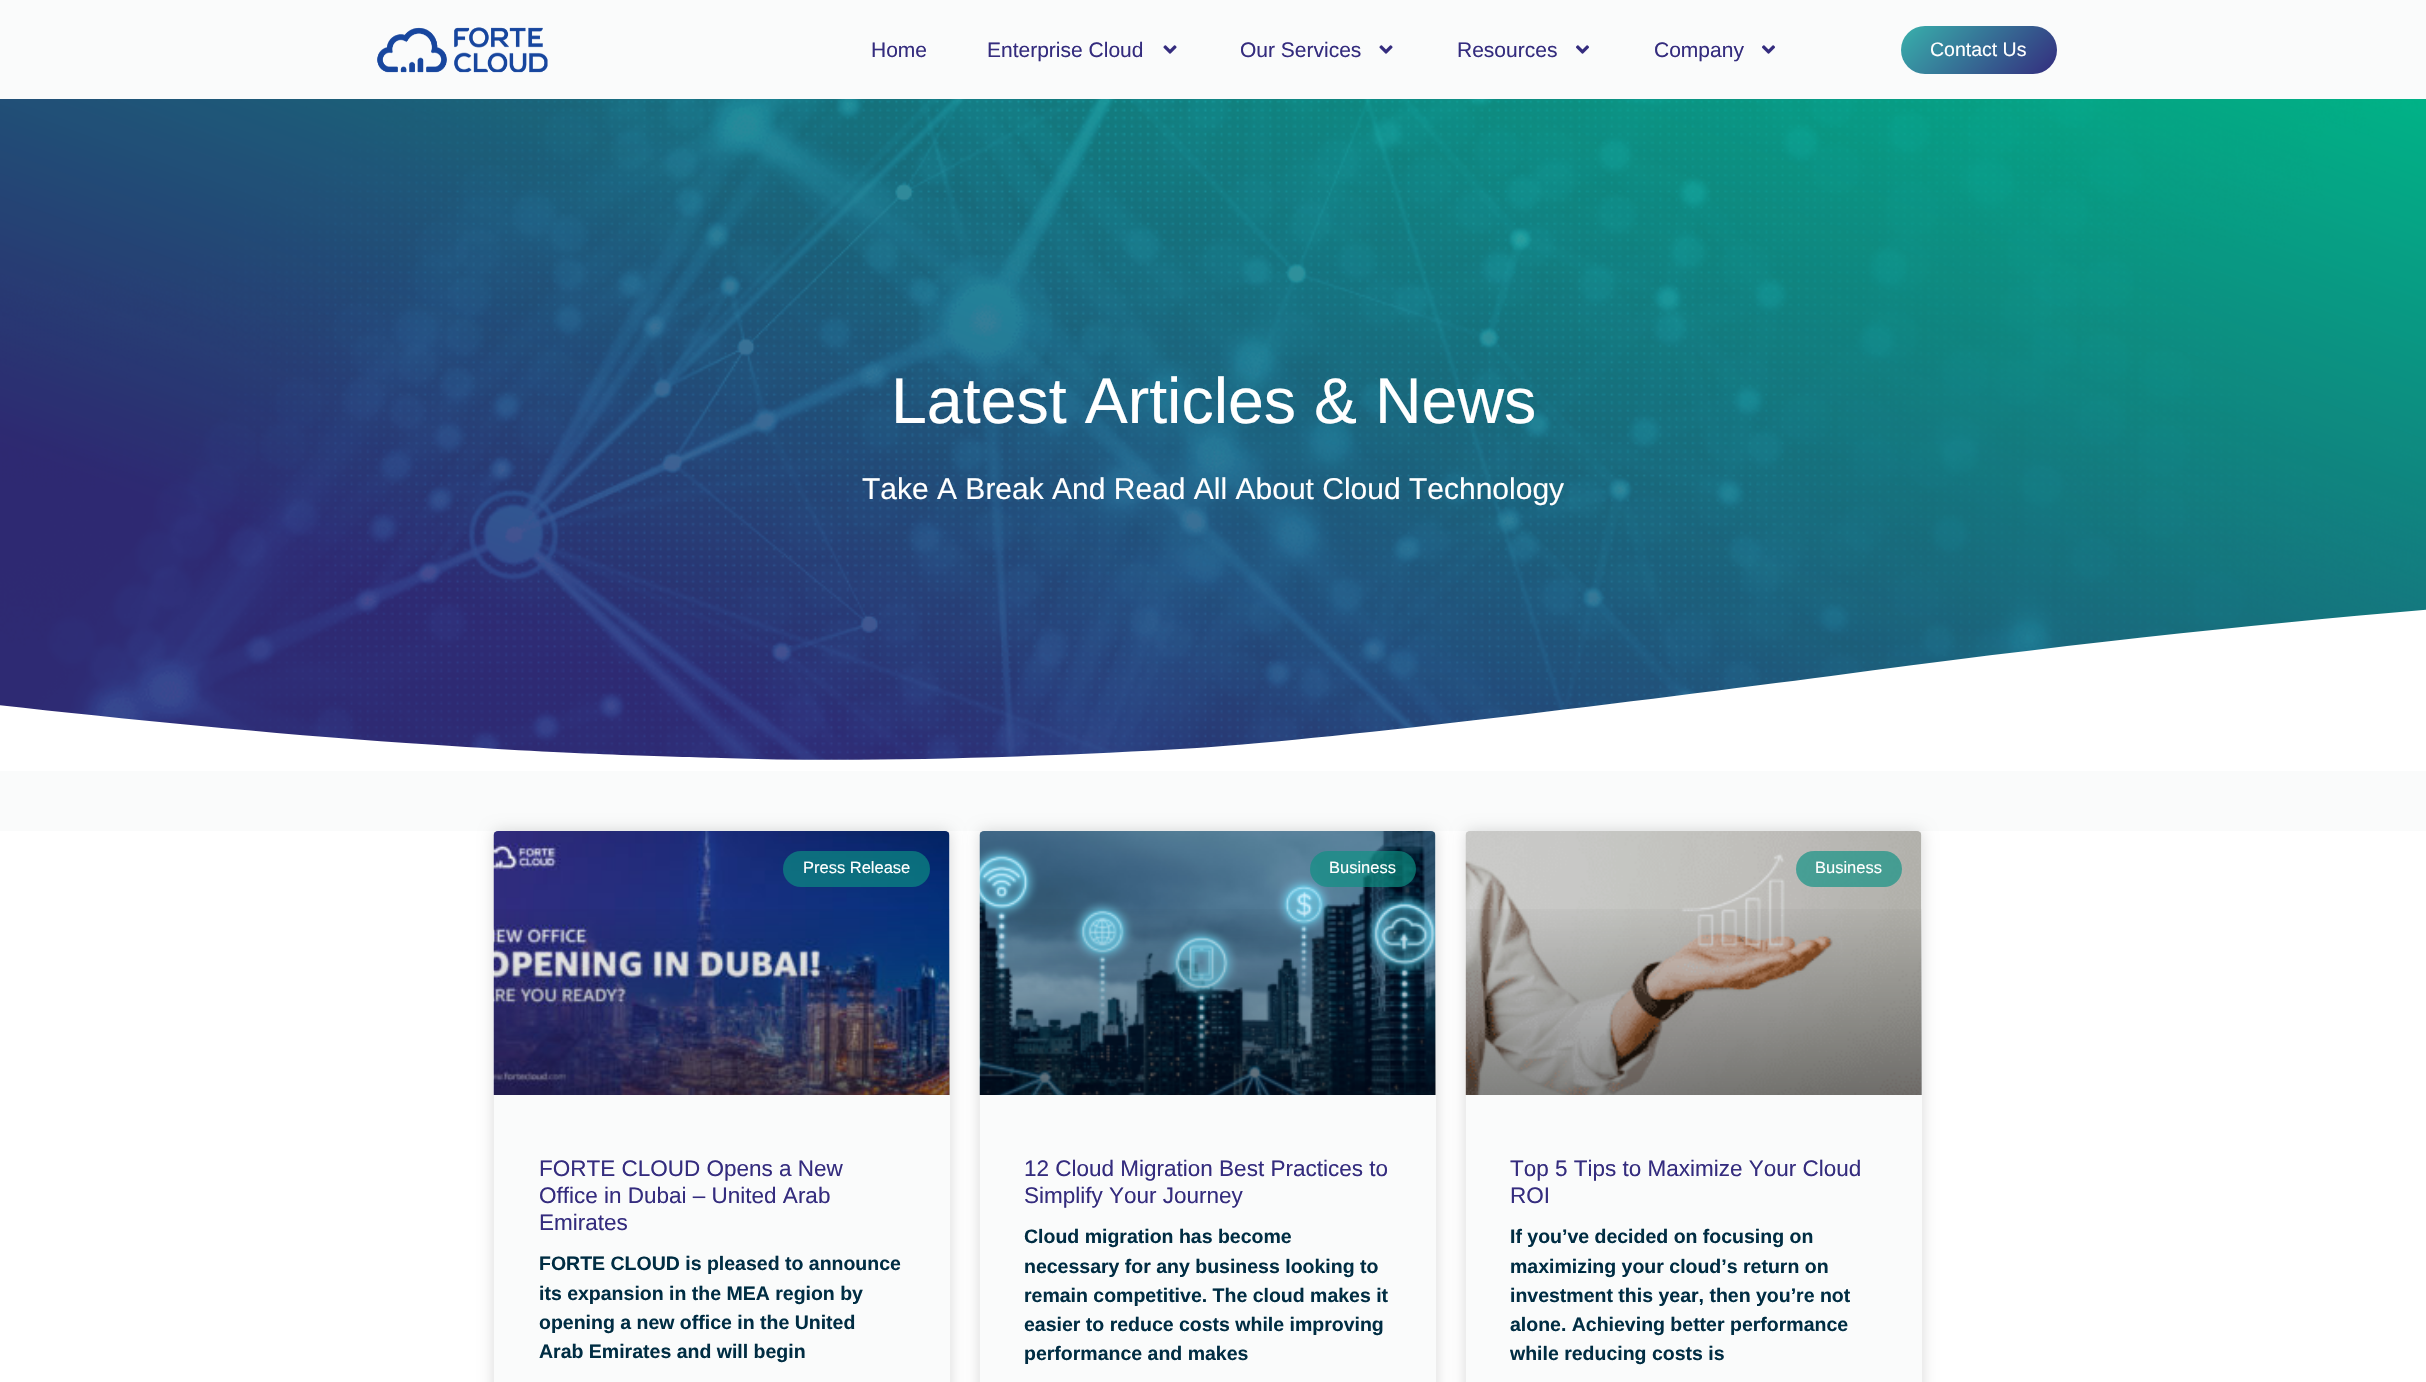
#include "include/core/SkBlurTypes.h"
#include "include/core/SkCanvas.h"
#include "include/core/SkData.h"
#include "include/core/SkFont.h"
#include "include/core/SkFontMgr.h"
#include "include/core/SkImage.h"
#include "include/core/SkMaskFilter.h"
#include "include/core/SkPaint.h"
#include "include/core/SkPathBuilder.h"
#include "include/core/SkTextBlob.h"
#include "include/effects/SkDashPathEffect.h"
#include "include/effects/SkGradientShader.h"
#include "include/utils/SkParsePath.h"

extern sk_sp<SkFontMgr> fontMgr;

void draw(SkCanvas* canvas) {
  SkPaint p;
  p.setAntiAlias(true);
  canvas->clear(SkColorSetRGB(250, 251, 251));
  canvas->drawImageRect(SkImages::DeferredFromEncodedData(SkData::MakeFromFileName("images/1.png")), SkRect::MakeLTRB(377, 27, 548, 73), SkSamplingOptions());
  canvas->drawImageRect(SkImages::DeferredFromEncodedData(SkData::MakeFromFileName("images/2.png")), SkRect::MakeLTRB(1163, 45, 1177, 54), SkSamplingOptions());
  canvas->drawImageRect(SkImages::DeferredFromEncodedData(SkData::MakeFromFileName("images/2.png")), SkRect::MakeLTRB(1379, 45, 1393, 54), SkSamplingOptions());
  canvas->drawImageRect(SkImages::DeferredFromEncodedData(SkData::MakeFromFileName("images/3.png")), SkRect::MakeLTRB(1576, 45, 1589, 54), SkSamplingOptions());
  canvas->drawImageRect(SkImages::DeferredFromEncodedData(SkData::MakeFromFileName("images/3.png")), SkRect::MakeLTRB(1762, 45, 1775, 54), SkSamplingOptions());
  {
    const SkColor colors[] = {SkColorSetRGB(52, 44, 126), SkColorSetRGB(56, 177, 172)};
    const float stops[] = {0, 1};
    const SkPoint ends[] = {{2030, 101}, {1928, -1.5f}};
    p.setShader(SkGradientShader::MakeLinear(ends, colors, stops, 2, SkTileMode::kClamp));
    p.setAlpha(255);
  }
  canvas->drawRoundRect(SkRect::MakeLTRB(1901, 26, 2057, 74), 24, 24, p);
  {
    const SkColor colors[] = {SkColorSetRGB(0, 204, 153), SkColorSetRGB(52, 44, 126)};
    const float stops[] = {0, 0.79f};
    const SkPoint ends[] = {{1463, -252}, {964, 1122}};
    p.setShader(SkGradientShader::MakeLinear(ends, colors, stops, 2, SkTileMode::kClamp));
    p.setAlpha(255);
  }
  canvas->drawRect(SkRect::MakeLTRB(0, 99, 2426, 760), p);
  canvas->drawImageRect(SkImages::DeferredFromEncodedData(SkData::MakeFromFileName("images/4.png")), SkRect::MakeLTRB(0, 99, 2426, 760), SkSamplingOptions());
  p.setShader(nullptr);
  p.setColor(SK_ColorWHITE);
  canvas->drawPath(SkPathBuilder().moveTo(721, 758).cubicTo(863, 763, 1046, 757, 1197, 748).cubicTo(1346, 738, 1645, 700, 1831, 676).cubicTo(2310, 611, 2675, 586, 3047, 576).cubicTo(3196, 572, 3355, 569, 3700, 581).cubicTo(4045, 593, 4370, 632, 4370, 632).lineTo(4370, 771).lineTo(-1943, 771).lineTo(-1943, 710).cubicTo(-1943, 710, -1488, 645, -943, 649).cubicTo(-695, 651, -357, 663, -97, 694).cubicTo(37, 710, 233, 731, 406, 743).cubicTo(578, 755, 656, 756, 721, 758).close().detach(), p);
  canvas->drawRect(SkRect::MakeLTRB(0, 831, 2426, 1382), p);
  p.setColor(SkColorSetARGB(38, 0, 0, 0));
  p.setMaskFilter(SkMaskFilter::MakeBlur(kNormal_SkBlurStyle, 7.5f));
  canvas->drawRoundRect(SkRect::MakeLTRB(494, 831, 950, 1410), 5, 5, p);
  p.setMaskFilter(nullptr);
  p.setColor(SkColorSetRGB(250, 251, 251));
  canvas->drawRoundRect(SkRect::MakeLTRB(494, 831, 950, 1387), 5, 5, p);
  canvas->drawImageRect(SkImages::DeferredFromEncodedData(SkData::MakeFromFileName("images/5.png")), SkRect::MakeLTRB(493, 831, 950, 1095), SkSamplingOptions());
  {
    const SkColor colors[] = {SkColorSetARGB(89, 0, 0, 0), SkColorSetARGB(0, 0, 0, 0)};
    const float stops[] = {0, 0.75f};
    const SkPoint ends[] = {{722, 1095}, {722, 831}};
    p.setShader(SkGradientShader::MakeLinear(ends, colors, stops, 2, SkTileMode::kClamp));
    p.setAlpha(255);
  }
  canvas->drawRect(SkRect::MakeLTRB(494, 909, 950, 1095), p);
  p.setShader(nullptr);
  p.setColor(SkColorSetARGB(168, 10, 144, 130));
  canvas->drawRoundRect(SkRect::MakeLTRB(783, 851, 930, 887), 18, 18, p);
  p.setColor(SkColorSetARGB(38, 0, 0, 0));
  p.setMaskFilter(SkMaskFilter::MakeBlur(kNormal_SkBlurStyle, 7.5f));
  canvas->drawRoundRect(SkRect::MakeLTRB(980, 831, 1436, 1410), 5, 5, p);
  p.setMaskFilter(nullptr);
  p.setColor(SkColorSetRGB(250, 251, 251));
  canvas->drawRoundRect(SkRect::MakeLTRB(980, 831, 1436, 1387), 5, 5, p);
  canvas->drawImageRect(SkImages::DeferredFromEncodedData(SkData::MakeFromFileName("images/6.png")), SkRect::MakeLTRB(979, 831, 1436, 1095), SkSamplingOptions());
  {
    const SkColor colors[] = {SkColorSetARGB(89, 0, 0, 0), SkColorSetARGB(0, 0, 0, 0)};
    const float stops[] = {0, 0.75f};
    const SkPoint ends[] = {{1208, 1095}, {1208, 831}};
    p.setShader(SkGradientShader::MakeLinear(ends, colors, stops, 2, SkTileMode::kClamp));
    p.setAlpha(255);
  }
  canvas->drawRect(SkRect::MakeLTRB(980, 909, 1436, 1095), p);
  p.setShader(nullptr);
  p.setColor(SkColorSetARGB(168, 10, 144, 130));
  canvas->drawRoundRect(SkRect::MakeLTRB(1310, 851, 1416, 887), 18, 18, p);
  p.setColor(SkColorSetARGB(38, 0, 0, 0));
  p.setMaskFilter(SkMaskFilter::MakeBlur(kNormal_SkBlurStyle, 7.5f));
  canvas->drawRoundRect(SkRect::MakeLTRB(1466, 831, 1922, 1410), 5, 5, p);
  p.setMaskFilter(nullptr);
  p.setColor(SkColorSetRGB(250, 251, 251));
  canvas->drawRoundRect(SkRect::MakeLTRB(1466, 831, 1922, 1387), 5, 5, p);
  canvas->drawImageRect(SkImages::DeferredFromEncodedData(SkData::MakeFromFileName("images/7.png")), SkRect::MakeLTRB(1465, 831, 1922, 1095), SkSamplingOptions());
  {
    const SkColor colors[] = {SkColorSetARGB(89, 0, 0, 0), SkColorSetARGB(0, 0, 0, 0)};
    const float stops[] = {0, 0.75f};
    const SkPoint ends[] = {{1694, 1095}, {1694, 831}};
    p.setShader(SkGradientShader::MakeLinear(ends, colors, stops, 2, SkTileMode::kClamp));
    p.setAlpha(255);
  }
  canvas->drawRect(SkRect::MakeLTRB(1466, 909, 1922, 1095), p);
  p.setShader(nullptr);
  p.setColor(SkColorSetARGB(168, 10, 144, 130));
  canvas->drawRoundRect(SkRect::MakeLTRB(1796, 851, 1902, 887), 18, 18, p);
  SkFont font1(fontMgr->matchFamilyStyle("Liberation Sans", SkFontStyle::Normal()), 21);
  font1.setSubpixel(true);
  p.setColor(SkColorSetRGB(52, 44, 126));
  canvas->drawString("Home", 871, 57, font1, p);
  canvas->drawString("Enterprise Cloud", 987, 57, font1, p);
  canvas->drawString("Our Services", 1240, 57, font1, p);
  canvas->drawString("Resources", 1457, 57, font1, p);
  canvas->drawString("Company", 1654, 57, font1, p);
  SkFont font2(fontMgr->matchFamilyStyle("Liberation Sans", SkFontStyle::Normal()), 19.5f);
  font2.setSubpixel(true);
  p.setColor(SK_ColorWHITE);
  canvas->drawString("Contact Us", 1930, 56, font2, p);
  SkFont font3(fontMgr->matchFamilyStyle("Liberation Sans", SkFontStyle::Normal()), 64.5f);
  font3.setSubpixel(true);
  canvas->drawString("Latest Articles & News", 891, 423, font3, p);
  SkFont font4(fontMgr->matchFamilyStyle("Liberation Sans", SkFontStyle::Normal()), 30);
  font4.setSubpixel(true);
  canvas->drawString("Take A Break And Read All About Cloud Technology", 862, 499, font4, p);
  SkFont font5(fontMgr->matchFamilyStyle("Liberation Sans", SkFontStyle::Normal()), 16.5f);
  font5.setSubpixel(true);
  canvas->drawString("Press Release", 803, 873, font5, p);
  SkFont font6(fontMgr->matchFamilyStyle("Liberation Sans", SkFontStyle::Normal()), 22.5f);
  font6.setSubpixel(true);
  p.setColor(SkColorSetRGB(52, 44, 126));
  canvas->drawString("FORTE CLOUD Opens a New", 539, 1176, font6, p);
  canvas->drawString("Office in Dubai – United Arab", 539, 1203, font6, p);
  canvas->drawString("Emirates", 539, 1230, font6, p);
  SkFont font7(fontMgr->matchFamilyStyle("Liberation Sans", SkFontStyle::Bold()), 19.5f);
  font7.setSubpixel(true);
  p.setColor(SkColorSetRGB(0, 45, 67));
  canvas->drawString("FORTE CLOUD is pleased to announce", 539, 1270, font7, p);
  canvas->drawString("its expansion in the MEA region by", 539, 1300, font7, p);
  canvas->drawString("opening a new office in the United", 539, 1329, font7, p);
  canvas->drawString("Arab Emirates and will begin", 539, 1358, font7, p);
  p.setColor(SK_ColorWHITE);
  canvas->drawString("Business", 1329, 873, font5, p);
  p.setColor(SkColorSetRGB(52, 44, 126));
  canvas->drawString("12 Cloud Migration Best Practices to", 1024, 1176, font6, p);
  canvas->drawString("Simplify Your Journey", 1024, 1203, font6, p);
  p.setColor(SkColorSetRGB(0, 45, 67));
  canvas->drawString("Cloud migration has become", 1024, 1243, font7, p);
  canvas->drawString("necessary for any business looking to", 1024, 1273, font7, p);
  canvas->drawString("remain competitive. The cloud makes it", 1024, 1302, font7, p);
  canvas->drawString("easier to reduce costs while improving", 1024, 1331, font7, p);
  canvas->drawString("performance and makes", 1024, 1360, font7, p);
  p.setColor(SK_ColorWHITE);
  canvas->drawString("Business", 1815, 873, font5, p);
  p.setColor(SkColorSetRGB(52, 44, 126));
  canvas->drawString("Top 5 Tips to Maximize Your Cloud", 1510, 1176, font6, p);
  canvas->drawString("ROI", 1510, 1203, font6, p);
  p.setColor(SkColorSetRGB(0, 45, 67));
  canvas->drawString("If you’ve decided on focusing on", 1510, 1243, font7, p);
  canvas->drawString("maximizing your cloud’s return on", 1510, 1273, font7, p);
  canvas->drawString("investment this year, then you’re not", 1510, 1302, font7, p);
  canvas->drawString("alone. Achieving better performance", 1510, 1331, font7, p);
  canvas->drawString("while reducing costs is", 1510, 1360, font7, p);
}
